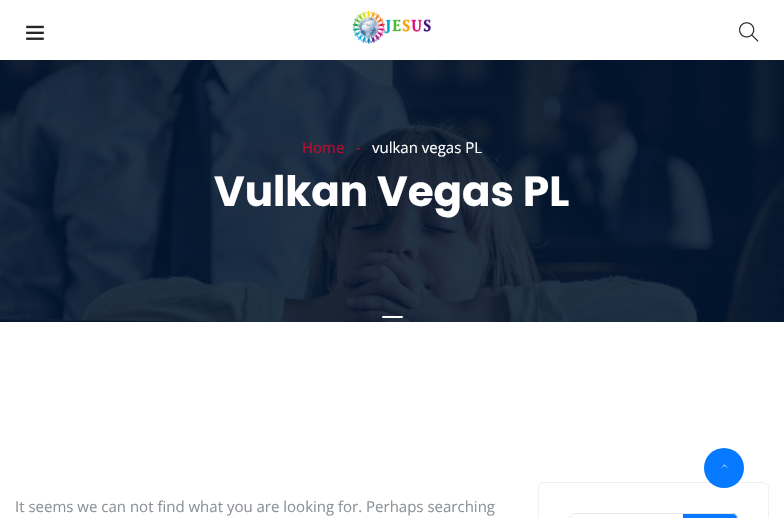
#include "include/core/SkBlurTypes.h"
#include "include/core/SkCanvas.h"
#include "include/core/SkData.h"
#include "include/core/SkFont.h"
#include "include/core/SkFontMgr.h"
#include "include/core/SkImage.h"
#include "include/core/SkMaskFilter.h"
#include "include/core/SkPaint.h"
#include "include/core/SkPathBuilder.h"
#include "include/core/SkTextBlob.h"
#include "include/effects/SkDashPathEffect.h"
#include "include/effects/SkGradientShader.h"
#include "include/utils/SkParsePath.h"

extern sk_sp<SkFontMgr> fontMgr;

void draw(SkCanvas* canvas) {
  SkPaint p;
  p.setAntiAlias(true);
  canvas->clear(SK_ColorWHITE);
  canvas->drawImageRect(SkImages::DeferredFromEncodedData(SkData::MakeFromFileName("images/1.png")), SkRect::MakeLTRB(26, 25, 44, 40), SkSamplingOptions());
  canvas->drawImageRect(SkImages::DeferredFromEncodedData(SkData::MakeFromFileName("images/2.png")), SkRect::MakeLTRB(352, 11, 432, 44), SkSamplingOptions());
  canvas->drawImageRect(SkImages::DeferredFromEncodedData(SkData::MakeFromFileName("images/3.png")), SkRect::MakeLTRB(739, 22, 759, 42), SkSamplingOptions());
  canvas->drawImageRect(SkImages::DeferredFromEncodedData(SkData::MakeFromFileName("images/4.png")), SkRect::MakeLTRB(0, 60, 784, 322), SkSamplingOptions());
  p.setColor(SK_ColorWHITE);
  canvas->drawRoundRect(SkRect::MakeLTRB(382, 316, 403, 318), 1, 1, p);
  p.setStyle(SkPaint::kStroke_Style);
  p.setStrokeWidth(1);
  p.setColor(SkColorSetRGB(240, 240, 240));
  canvas->drawRoundRect(SkRect::MakeLTRB(538.5f, 482.5f, 768.5f, 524.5f), 5.5f, 5.5f, p);
  p.setStyle(SkPaint::kFill_Style);
  p.setColor(SkColorSetRGB(234, 234, 234));
  canvas->drawPath(SkPathBuilder(SkPathFillType::kEvenOdd).moveTo(575, 513).lineTo(683, 513).lineTo(683, 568).lineTo(575, 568).cubicTo(572, 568, 569, 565, 569, 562).lineTo(569, 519).cubicTo(569, 516, 572, 513, 575, 513).close().moveTo(575, 514).lineTo(683, 514).lineTo(683, 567).lineTo(575, 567).cubicTo(572, 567, 570, 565, 570, 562).lineTo(570, 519).cubicTo(570, 516, 572, 514, 575, 514).close().detach(), p);
  p.setColor(SkColorSetRGB(5, 121, 255));
  canvas->drawPath(SkPathBuilder().moveTo(683, 513).lineTo(732, 513).cubicTo(735.5f, 513, 738, 515.5f, 738, 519).lineTo(738, 518).cubicTo(738, 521.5f, 735.5f, 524, 732, 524).lineTo(683, 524).close().detach(), p);
  p.setColor(SkColorSetRGB(234, 234, 234));
  canvas->drawPath(SkPathBuilder(SkPathFillType::kEvenOdd).moveTo(683, 513).lineTo(732, 513).cubicTo(735, 513, 738, 516, 738, 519).lineTo(738, 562).cubicTo(738, 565, 735, 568, 732, 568).lineTo(683, 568).close().moveTo(683, 514).lineTo(732, 514).cubicTo(735, 514, 737, 516, 737, 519).lineTo(737, 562).cubicTo(737, 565, 735, 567, 732, 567).lineTo(683, 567).close().detach(), p);
  p.setColor(SkColorSetRGB(5, 121, 255));
  canvas->drawCircle(724, 468, 20, p);
  p.setColor(SK_ColorWHITE);
  canvas->drawPath(SkPathBuilder().moveTo(728.5f, 469).lineTo(724.5f, 465.5f).lineTo(720.5f, 469).lineTo(724.5f, 464.5f).close().detach(), p);
  SkFont font1(fontMgr->matchFamilyStyle("Open Sans", SkFontStyle::Normal()), 15);
  font1.setSubpixel(true);
  p.setColor(SkColorSetRGB(191, 10, 48));
  canvas->drawString("Home", 302, 153, font1, p);
  canvas->drawString("-", 356, 153, font1, p);
  p.setColor(SK_ColorWHITE);
  canvas->drawString("vulkan vegas PL", 372, 153, font1, p);
  SkFont font2(fontMgr->matchFamilyStyle("Poppins", SkFontStyle::Bold()), 42);
  font2.setSubpixel(true);
  canvas->drawString("Vulkan Vegas PL", 214, 206, font2, p);
  p.setColor(SkColorSetRGB(141, 146, 151));
  canvas->drawString("It seems we can not find what you are looking for. Perhaps searching", 15, 512, font1, p);
}
